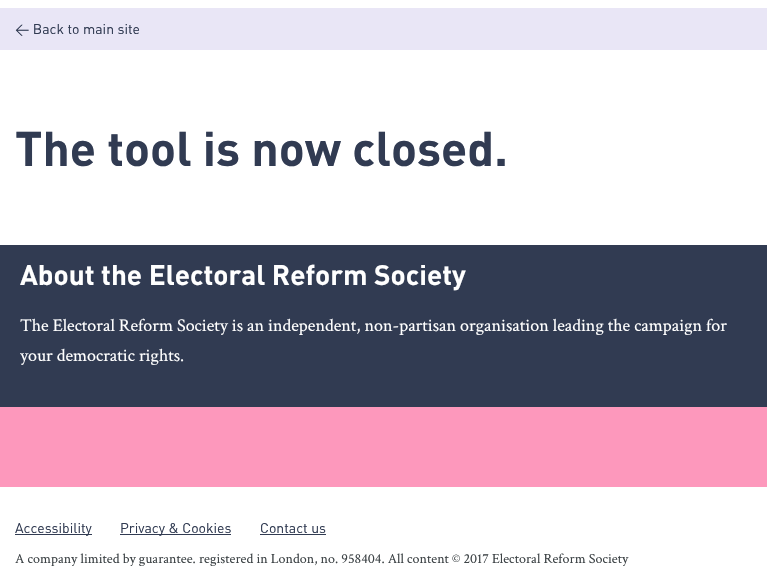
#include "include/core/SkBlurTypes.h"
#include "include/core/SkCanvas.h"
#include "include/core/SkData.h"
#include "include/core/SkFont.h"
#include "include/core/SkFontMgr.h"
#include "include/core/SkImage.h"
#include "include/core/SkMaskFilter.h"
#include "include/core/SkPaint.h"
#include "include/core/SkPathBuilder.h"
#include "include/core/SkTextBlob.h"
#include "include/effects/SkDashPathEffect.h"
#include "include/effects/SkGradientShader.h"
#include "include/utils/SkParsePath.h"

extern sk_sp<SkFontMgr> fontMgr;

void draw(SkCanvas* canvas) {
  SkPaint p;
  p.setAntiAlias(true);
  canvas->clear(SK_ColorWHITE);
  p.setColor(SkColorSetRGB(233, 230, 246));
  canvas->drawRect(SkRect::MakeLTRB(0, 8, 767, 50), p);
  p.setColor(SkColorSetRGB(253, 152, 188));
  canvas->drawRect(SkRect::MakeLTRB(0, 407, 767, 487), p);
  p.setColor(SkColorSetRGB(49, 59, 82));
  canvas->drawRect(SkRect::MakeLTRB(0, 245, 767, 407), p);
  canvas->drawRect(SkRect::MakeLTRB(15, 534, 92, 535), p);
  canvas->drawRect(SkRect::MakeLTRB(120, 534, 231, 535), p);
  canvas->drawRect(SkRect::MakeLTRB(260, 534, 326, 535), p);
  SkFont font1(fontMgr->matchFamilyStyle("DIN", SkFontStyle::Normal()), 14);
  font1.setSubpixel(true);
  canvas->drawString("< Back to main site", 15, 34, font1, p);
  SkFont font2(fontMgr->matchFamilyStyle("DIN", SkFontStyle::Bold()), 48);
  font2.setSubpixel(true);
  canvas->drawString("The tool is now closed.", 15, 166, font2, p);
  SkFont font3(fontMgr->matchFamilyStyle("DIN", SkFontStyle::Bold()), 28);
  font3.setSubpixel(true);
  p.setColor(SK_ColorWHITE);
  canvas->drawString("About the Electoral Reform Society", 20, 285, font3, p);
  SkFont font4(fontMgr->matchFamilyStyle("Crimson Text", SkFontStyle::Normal()), 18);
  font4.setSubpixel(true);
  canvas->drawString("The Electoral Reform Society is an independent, non-partisan organisation leading the campaign for", 20, 331, font4, p);
  canvas->drawString("your democratic rights.", 20, 361, font4, p);
  p.setColor(SkColorSetRGB(49, 59, 82));
  canvas->drawString("Accessibility", 15, 533, font1, p);
  canvas->drawString("Privacy & Cookies", 120, 533, font1, p);
  canvas->drawString("Contact us", 260, 533, font1, p);
  SkFont font5(fontMgr->matchFamilyStyle("Crimson Text", SkFontStyle::Normal()), 14);
  font5.setSubpixel(true);
  p.setColor(SkColorSetRGB(61, 67, 70));
  canvas->drawString("A company limited by guarantee. registered in London, no. 958404. All content © 2017 Electoral Reform Society", 15, 563, font5, p);
}
